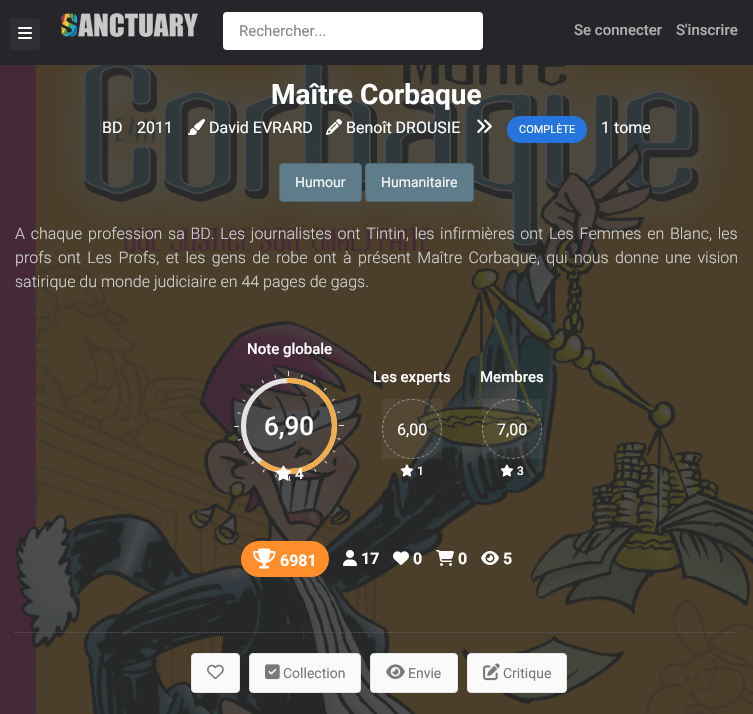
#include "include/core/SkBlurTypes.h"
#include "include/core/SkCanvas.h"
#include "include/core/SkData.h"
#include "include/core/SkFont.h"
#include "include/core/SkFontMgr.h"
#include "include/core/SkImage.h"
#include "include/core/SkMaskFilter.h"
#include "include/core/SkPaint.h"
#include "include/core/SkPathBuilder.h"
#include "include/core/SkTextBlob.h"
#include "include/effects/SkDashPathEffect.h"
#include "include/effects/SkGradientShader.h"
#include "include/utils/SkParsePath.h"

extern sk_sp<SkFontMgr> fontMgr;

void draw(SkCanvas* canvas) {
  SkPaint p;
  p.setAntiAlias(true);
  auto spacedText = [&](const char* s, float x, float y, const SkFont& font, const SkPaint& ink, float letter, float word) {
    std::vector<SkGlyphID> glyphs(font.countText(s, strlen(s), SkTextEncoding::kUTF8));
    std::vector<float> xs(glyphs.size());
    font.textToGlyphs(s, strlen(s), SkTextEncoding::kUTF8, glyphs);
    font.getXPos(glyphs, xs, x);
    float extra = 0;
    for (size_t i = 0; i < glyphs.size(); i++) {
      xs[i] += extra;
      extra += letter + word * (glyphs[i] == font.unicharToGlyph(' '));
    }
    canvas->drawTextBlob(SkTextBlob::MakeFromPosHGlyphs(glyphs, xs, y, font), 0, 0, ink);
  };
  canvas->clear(SK_ColorWHITE);
  p.setColor(SkColorSetRGB(36, 38, 41));
  canvas->drawRect(SkRect::MakeLTRB(0, 0, 753, 65), p);
  p.setColor(SkColorSetRGB(45, 47, 50));
  canvas->drawRoundRect(SkRect::MakeLTRB(10, 18, 40, 50), 4, 4, p);
  canvas->drawImageRect(SkImages::DeferredFromEncodedData(SkData::MakeFromFileName("images/1.png")), SkRect::MakeLTRB(18, 27, 32, 39), SkSamplingOptions());
  canvas->drawImageRect(SkImages::DeferredFromEncodedData(SkData::MakeFromFileName("images/2.png")), SkRect::MakeLTRB(61, 13, 198, 37), SkSamplingOptions());
  p.setColor(SK_ColorWHITE);
  canvas->drawRoundRect(SkRect::MakeLTRB(223, 12, 483, 50), 4, 4, p);
  canvas->drawImageRect(SkImages::DeferredFromEncodedData(SkData::MakeFromFileName("images/3.png")), SkRect::MakeLTRB(0, 65, 753, 714), SkSamplingOptions());
  canvas->drawImageRect(SkImages::DeferredFromEncodedData(SkData::MakeFromFileName("images/4.png")), SkRect::MakeLTRB(188, 119, 205, 135), SkSamplingOptions());
  canvas->drawImageRect(SkImages::DeferredFromEncodedData(SkData::MakeFromFileName("images/5.png")), SkRect::MakeLTRB(326, 119, 342, 135), SkSamplingOptions());
  canvas->drawImageRect(SkImages::DeferredFromEncodedData(SkData::MakeFromFileName("images/6.png")), SkRect::MakeLTRB(477, 119, 492, 133), SkSamplingOptions());
  p.setColor(SkColorSetRGB(37, 117, 220));
  canvas->drawRoundRect(SkRect::MakeLTRB(507, 116, 587, 143), 13.5f, 13.5f, p);
  p.setColor(SkColorSetRGB(95, 124, 138));
  canvas->drawRoundRect(SkRect::MakeLTRB(279.5f, 163.5f, 361.5f, 201.5f), 3.5f, 3.5f, p);
  p.setStyle(SkPaint::kStroke_Style);
  p.setStrokeWidth(1);
  p.setColor(SkColorSetRGB(81, 106, 118));
  canvas->drawRoundRect(SkRect::MakeLTRB(279.5f, 163.5f, 361.5f, 201.5f), 3.5f, 3.5f, p);
  p.setStyle(SkPaint::kFill_Style);
  p.setColor(SkColorSetRGB(95, 124, 138));
  canvas->drawRoundRect(SkRect::MakeLTRB(365.5f, 163.5f, 473.5f, 201.5f), 3.5f, 3.5f, p);
  p.setStyle(SkPaint::kStroke_Style);
  p.setColor(SkColorSetRGB(81, 106, 118));
  canvas->drawRoundRect(SkRect::MakeLTRB(365.5f, 163.5f, 473.5f, 201.5f), 3.5f, 3.5f, p);
  p.setStyle(SkPaint::kFill_Style);
  p.setColor(SkColorSetARGB(13, 255, 255, 255));
  canvas->drawRect(SkRect::MakeLTRB(382, 399, 442, 459), p);
  p.setStyle(SkPaint::kStroke_Style);
  p.setColor(SkColorSetARGB(102, 255, 255, 255));
  p.setPathEffect(SkDashPathEffect::Make({{3, 2}}, 0));
  canvas->drawPath(SkPathBuilder().moveTo(412, 399.5f).cubicTo(428.5f, 399.5f, 441.5f, 412.5f, 441.5f, 429).cubicTo(441.5f, 445.5f, 428.5f, 458.5f, 412, 458.5f).cubicTo(395.5f, 458.5f, 382.5f, 445.5f, 382.5f, 429).cubicTo(382.5f, 412.5f, 395.5f, 399.5f, 412, 399.5f).close().detach(), p);
  p.setPathEffect(nullptr);
  canvas->drawImageRect(SkImages::DeferredFromEncodedData(SkData::MakeFromFileName("images/9.png")), SkRect::MakeLTRB(400, 464, 414, 477), SkSamplingOptions());
  p.setStyle(SkPaint::kFill_Style);
  p.setColor(SkColorSetARGB(13, 255, 255, 255));
  canvas->drawRect(SkRect::MakeLTRB(482, 399, 542, 459), p);
  p.setStyle(SkPaint::kStroke_Style);
  p.setColor(SkColorSetARGB(102, 255, 255, 255));
  p.setPathEffect(SkDashPathEffect::Make({{3, 2}}, 0));
  canvas->drawPath(SkPathBuilder().moveTo(512, 399.5f).cubicTo(528.5f, 399.5f, 541.5f, 412.5f, 541.5f, 429).cubicTo(541.5f, 445.5f, 528.5f, 458.5f, 512, 458.5f).cubicTo(495.5f, 458.5f, 482.5f, 445.5f, 482.5f, 429).cubicTo(482.5f, 412.5f, 495.5f, 399.5f, 512, 399.5f).close().detach(), p);
  p.setPathEffect(nullptr);
  canvas->drawImageRect(SkImages::DeferredFromEncodedData(SkData::MakeFromFileName("images/10.png")), SkRect::MakeLTRB(500, 464, 514, 477), SkSamplingOptions());
  p.setStyle(SkPaint::kFill_Style);
  p.setColor(SkColorSetRGB(255, 142, 43));
  canvas->drawRoundRect(SkRect::MakeLTRB(241, 541, 329, 577), 18, 18, p);
  canvas->drawImageRect(SkImages::DeferredFromEncodedData(SkData::MakeFromFileName("images/11.png")), SkRect::MakeLTRB(253, 548, 276, 569), SkSamplingOptions());
  canvas->drawImageRect(SkImages::DeferredFromEncodedData(SkData::MakeFromFileName("images/12.png")), SkRect::MakeLTRB(343, 550, 357, 566), SkSamplingOptions());
  canvas->drawImageRect(SkImages::DeferredFromEncodedData(SkData::MakeFromFileName("images/13.png")), SkRect::MakeLTRB(393, 551, 409, 565), SkSamplingOptions());
  canvas->drawImageRect(SkImages::DeferredFromEncodedData(SkData::MakeFromFileName("images/14.png")), SkRect::MakeLTRB(436, 550, 454, 566), SkSamplingOptions());
  canvas->drawImageRect(SkImages::DeferredFromEncodedData(SkData::MakeFromFileName("images/15.png")), SkRect::MakeLTRB(481, 551, 499, 565), SkSamplingOptions());
  p.setStyle(SkPaint::kStroke_Style);
  p.setColor(SkColorSetRGB(89, 89, 95));
  p.setPathEffect(SkDashPathEffect::Make({{1, 1}}, 0));
  canvas->drawPath(SkPathBuilder().moveTo(15, 632.5f).lineTo(738, 632.5f).detach(), p);
  p.setPathEffect(nullptr);
  p.setStyle(SkPaint::kFill_Style);
  p.setColor(SkColorSetRGB(250, 250, 250));
  canvas->drawRoundRect(SkRect::MakeLTRB(191.5f, 653.5f, 239.5f, 692.5f), 3.5f, 3.5f, p);
  p.setStyle(SkPaint::kStroke_Style);
  p.setColor(SkColorSetRGB(230, 230, 230));
  canvas->drawRoundRect(SkRect::MakeLTRB(191.5f, 653.5f, 239.5f, 692.5f), 3.5f, 3.5f, p);
  canvas->drawImageRect(SkImages::DeferredFromEncodedData(SkData::MakeFromFileName("images/16.png")), SkRect::MakeLTRB(207, 664, 224, 679), SkSamplingOptions());
  p.setStyle(SkPaint::kFill_Style);
  p.setColor(SkColorSetRGB(250, 250, 250));
  canvas->drawRoundRect(SkRect::MakeLTRB(249.5f, 653.5f, 360.5f, 692.5f), 3.5f, 3.5f, p);
  p.setStyle(SkPaint::kStroke_Style);
  p.setColor(SkColorSetRGB(230, 230, 230));
  canvas->drawRoundRect(SkRect::MakeLTRB(249.5f, 653.5f, 360.5f, 692.5f), 3.5f, 3.5f, p);
  canvas->drawImageRect(SkImages::DeferredFromEncodedData(SkData::MakeFromFileName("images/17.png")), SkRect::MakeLTRB(265, 664, 280, 680), SkSamplingOptions());
  p.setStyle(SkPaint::kFill_Style);
  p.setColor(SkColorSetRGB(250, 250, 250));
  canvas->drawRoundRect(SkRect::MakeLTRB(370.5f, 653.5f, 457.5f, 692.5f), 3.5f, 3.5f, p);
  p.setStyle(SkPaint::kStroke_Style);
  p.setColor(SkColorSetRGB(230, 230, 230));
  canvas->drawRoundRect(SkRect::MakeLTRB(370.5f, 653.5f, 457.5f, 692.5f), 3.5f, 3.5f, p);
  canvas->drawImageRect(SkImages::DeferredFromEncodedData(SkData::MakeFromFileName("images/18.png")), SkRect::MakeLTRB(386, 664, 405, 679), SkSamplingOptions());
  p.setStyle(SkPaint::kFill_Style);
  p.setColor(SkColorSetRGB(250, 250, 250));
  canvas->drawRoundRect(SkRect::MakeLTRB(467.5f, 653.5f, 566.5f, 692.5f), 3.5f, 3.5f, p);
  p.setStyle(SkPaint::kStroke_Style);
  p.setColor(SkColorSetRGB(230, 230, 230));
  canvas->drawRoundRect(SkRect::MakeLTRB(467.5f, 653.5f, 566.5f, 692.5f), 3.5f, 3.5f, p);
  canvas->drawImageRect(SkImages::DeferredFromEncodedData(SkData::MakeFromFileName("images/19.png")), SkRect::MakeLTRB(483, 663, 500, 681), SkSamplingOptions());
  SkFont font1(fontMgr->matchFamilyStyle("Roboto", SkFontStyle::Normal()), 15);
  font1.setSubpixel(true);
  p.setStyle(SkPaint::kFill_Style);
  p.setColor(SkColorSetRGB(135, 135, 135));
  canvas->drawString("Rechercher...", 239, 36, font1, p);
  SkFont font2(fontMgr->matchFamilyStyle("Roboto", SkFontStyle(500, SkFontStyle::kNormal_Width, SkFontStyle::kUpright_Slant)), 15);
  font2.setSubpixel(true);
  p.setColor(SkColorSetRGB(177, 177, 177));
  canvas->drawString("Se connecter", 574, 35, font2, p);
  canvas->drawString("S'inscrire", 676, 35, font2, p);
  SkFont font3(fontMgr->matchFamilyStyle("Roboto", SkFontStyle::Bold()), 28);
  font3.setSubpixel(true);
  p.setColor(SK_ColorWHITE);
  canvas->drawString("Maître Corbaque", 271, 104, font3, p);
  SkFont font4(fontMgr->matchFamilyStyle("Roboto", SkFontStyle::Normal()), 16);
  font4.setSubpixel(true);
  canvas->drawString("BD", 102, 133, font4, p);
  canvas->drawString("2011", 137, 133, font4, p);
  canvas->drawString("David EVRARD", 209, 133, font4, p);
  canvas->drawString("Benoît DROUSIE", 346, 133, font4, p);
  SkFont font5(fontMgr->matchFamilyStyle("Roboto", SkFontStyle::Normal()), 11);
  font5.setSubpixel(true);
  canvas->drawString("COMPLÈTE", 519, 133, font5, p);
  canvas->drawString("1 tome", 601, 133, font4, p);
  SkFont font6(fontMgr->matchFamilyStyle("Roboto", SkFontStyle::Normal()), 14);
  font6.setSubpixel(true);
  p.setColor(SkColorSetRGB(248, 248, 248));
  canvas->drawString("Humour", 295, 187, font6, p);
  canvas->drawString("Humanitaire", 381, 187, font6, p);
  SkFont font7(fontMgr->matchFamilyStyle("Roboto", SkFontStyle(300, SkFontStyle::kNormal_Width, SkFontStyle::kUpright_Slant)), 16);
  font7.setSubpixel(true);
  p.setColor(SkColorSetRGB(211, 211, 211));
  spacedText("A chaque profession sa BD. Les journalistes ont Tintin, les infirmières ont Les Femmes en Blanc, les", 15, 239, font7, p, 0, 1.8f);
  spacedText("profs ont Les Profs, et les gens de robe ont à présent Maître Corbaque, qui nous donne une vision", 15, 263, font7, p, 0, 2.5f);
  canvas->drawString("satirique du monde judiciaire en 44 pages de gags.", 15, 287, font7, p);
  p.setColor(SK_ColorWHITE);
  canvas->drawString("Note globale", 247, 354, font2, p);
  SkFont font8(fontMgr->matchFamilyStyle("Roboto", SkFontStyle(500, SkFontStyle::kNormal_Width, SkFontStyle::kUpright_Slant)), 26);
  font8.setSubpixel(true);
  canvas->drawString("6,90", 264, 435, font8, p);
  canvas->drawImageRect(SkImages::DeferredFromEncodedData(SkData::MakeFromFileName("images/7.png")), SkRect::MakeLTRB(234, 371, 344, 481), SkSamplingOptions());
  canvas->drawImageRect(SkImages::DeferredFromEncodedData(SkData::MakeFromFileName("images/8.png")), SkRect::MakeLTRB(275, 465, 292, 481), SkSamplingOptions());
  canvas->drawString("4", 295, 479, font2, p);
  canvas->drawString("Les experts", 373, 382, font2, p);
  canvas->drawString("6,00", 397, 435, font4, p);
  SkFont font9(fontMgr->matchFamilyStyle("Roboto", SkFontStyle(500, SkFontStyle::kNormal_Width, SkFontStyle::kUpright_Slant)), 12);
  font9.setSubpixel(true);
  canvas->drawString("1", 417, 475, font9, p);
  canvas->drawString("Membres", 480, 382, font2, p);
  canvas->drawString("7,00", 497, 435, font4, p);
  canvas->drawString("3", 517, 475, font9, p);
  SkFont font10(fontMgr->matchFamilyStyle("Roboto", SkFontStyle::Bold()), 16);
  font10.setSubpixel(true);
  canvas->drawString("6981", 280, 566, font10, p);
  canvas->drawString("17", 361, 564, font10, p);
  canvas->drawString("0", 413, 564, font10, p);
  canvas->drawString("0", 458, 564, font10, p);
  canvas->drawString("5", 503, 564, font10, p);
  p.setColor(SkColorSetRGB(120, 122, 123));
  canvas->drawString("Collection", 283, 678, font6, p);
  canvas->drawString("Envie", 408, 678, font6, p);
  canvas->drawString("Critique", 503, 678, font6, p);
}
